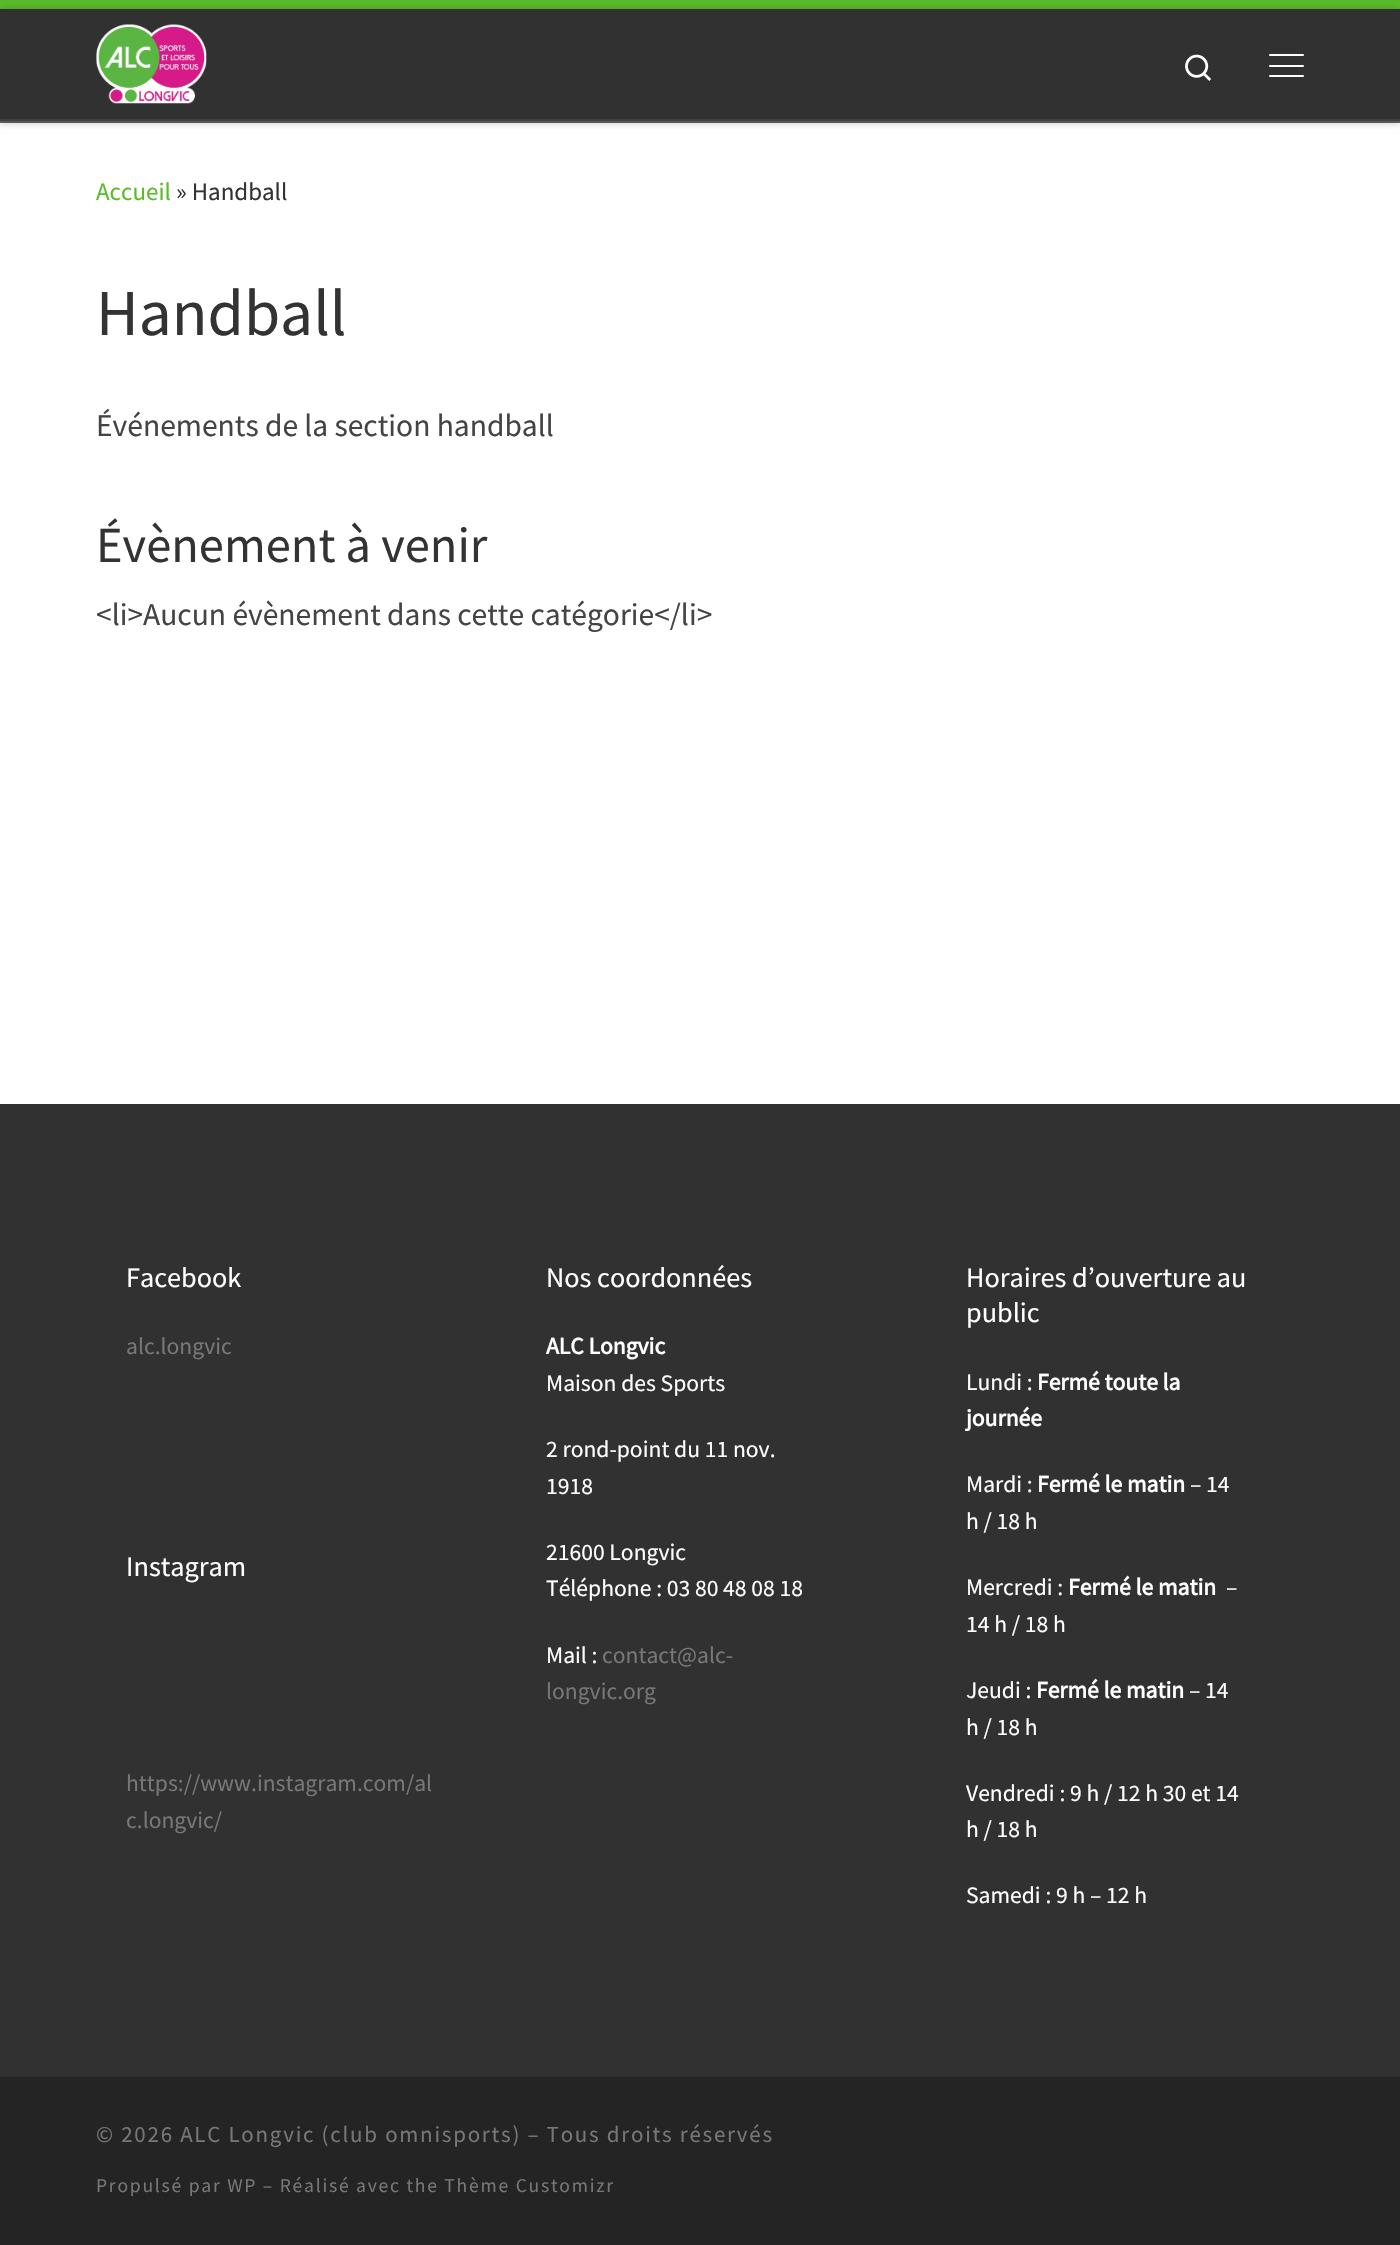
#include "include/core/SkBlurTypes.h"
#include "include/core/SkCanvas.h"
#include "include/core/SkData.h"
#include "include/core/SkFont.h"
#include "include/core/SkFontMgr.h"
#include "include/core/SkImage.h"
#include "include/core/SkMaskFilter.h"
#include "include/core/SkPaint.h"
#include "include/core/SkPathBuilder.h"
#include "include/core/SkTextBlob.h"
#include "include/effects/SkDashPathEffect.h"
#include "include/effects/SkGradientShader.h"
#include "include/utils/SkParsePath.h"

extern sk_sp<SkFontMgr> fontMgr;

void draw(SkCanvas* canvas) {
  SkPaint p;
  p.setAntiAlias(true);
  auto spacedText = [&](const char* s, float x, float y, const SkFont& font, const SkPaint& ink, float letter, float word) {
    std::vector<SkGlyphID> glyphs(font.countText(s, strlen(s), SkTextEncoding::kUTF8));
    std::vector<float> xs(glyphs.size());
    font.textToGlyphs(s, strlen(s), SkTextEncoding::kUTF8, glyphs);
    font.getXPos(glyphs, xs, x);
    float extra = 0;
    for (size_t i = 0; i < glyphs.size(); i++) {
      xs[i] += extra;
      extra += letter + word * (glyphs[i] == font.unicharToGlyph(' '));
    }
    canvas->drawTextBlob(SkTextBlob::MakeFromPosHGlyphs(glyphs, xs, y, font), 0, 0, ink);
  };
  canvas->clear(SK_ColorWHITE);
  p.setColor(SkColorSetARGB(20, 102, 102, 102));
  p.setMaskFilter(SkMaskFilter::MakeBlur(kNormal_SkBlurStyle, 2));
  canvas->drawRect(SkRect::MakeLTRB(0, 4, 1400, 126), p);
  p.setMaskFilter(nullptr);
  p.setColor(SkColorSetRGB(49, 49, 49));
  canvas->drawRect(SkRect::MakeLTRB(0, 9, 1400, 119), p);
  p.setColor(SkColorSetRGB(91, 188, 42));
  canvas->drawRect(SkRect::MakeLTRB(0, 0, 1400, 9), p);
  p.setColor(SkColorSetRGB(96, 96, 96));
  canvas->drawRect(SkRect::MakeLTRB(0, 121, 1400, 123), p);
  canvas->save();
  canvas->clipPath(SkPathBuilder(SkPathFillType::kEvenOdd).moveTo(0, 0).lineTo(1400, 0).lineTo(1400, 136).lineTo(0, 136).close().moveTo(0, 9).lineTo(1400, 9).lineTo(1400, 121).lineTo(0, 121).close().detach(), true);
  p.setColor(SkColorSetARGB(51, 0, 0, 0));
  p.setMaskFilter(SkMaskFilter::MakeBlur(kNormal_SkBlurStyle, 4.5f));
  canvas->drawRect(SkRect::MakeLTRB(0, 9, 1400, 121), p);
  p.setMaskFilter(nullptr);
  canvas->restore();
  canvas->drawImageRect(SkImages::DeferredFromEncodedData(SkData::MakeFromFileName("images/1.png")), SkRect::MakeLTRB(96, 24, 207, 104), SkSamplingOptions());
  canvas->drawImageRect(SkImages::DeferredFromEncodedData(SkData::MakeFromFileName("images/2.png")), SkRect::MakeLTRB(1185, 54, 1212, 81), SkSamplingOptions());
  p.setColor(SK_ColorWHITE);
  canvas->drawRoundRect(SkRect::MakeLTRB(1269, 54, 1304, 56), 1, 1, p);
  canvas->drawRoundRect(SkRect::MakeLTRB(1269, 65, 1304, 67), 1, 1, p);
  canvas->drawRoundRect(SkRect::MakeLTRB(1269, 75, 1304, 77), 1, 1, p);
  p.setColor(SkColorSetRGB(64, 64, 64));
  canvas->drawRect(SkRect::MakeLTRB(0, 119, 1400, 121), p);
  p.setColor(SkColorSetRGB(49, 49, 49));
  canvas->drawRect(SkRect::MakeLTRB(0, 1104, 1400, 2077), p);
  p.setColor(SkColorSetRGB(36, 36, 36));
  canvas->drawRect(SkRect::MakeLTRB(0, 2077, 1400, 2245), p);
  SkFont font1(fontMgr->matchFamilyStyle("Source Sans Pro", SkFontStyle::Normal()), 25);
  font1.setSubpixel(true);
  p.setColor(SkColorSetRGB(91, 188, 42));
  canvas->drawString("Accueil", 96, 200, font1, p);
  p.setColor(SkColorSetRGB(51, 51, 51));
  canvas->drawString("» Handball", 176, 200, font1, p);
  SkFont font2(fontMgr->matchFamilyStyle("Source Sans Pro", SkFontStyle::Normal()), 65.5f);
  font2.setSubpixel(true);
  canvas->drawString("Handball", 96, 335, font2, p);
  SkFont font3(fontMgr->matchFamilyStyle("Source Sans Pro", SkFontStyle::Normal()), 31.5f);
  font3.setSubpixel(true);
  p.setColor(SkColorSetRGB(68, 68, 68));
  canvas->drawString("Événements de la section handball", 96, 436, font3, p);
  SkFont font4(fontMgr->matchFamilyStyle("Source Sans Pro", SkFontStyle::Normal()), 50.5f);
  font4.setSubpixel(true);
  p.setColor(SkColorSetRGB(51, 51, 51));
  canvas->drawString("Évènement à venir", 96, 562, font4, p);
  p.setColor(SkColorSetRGB(68, 68, 68));
  canvas->drawString("<li>Aucun évènement dans cette catégorie</li>", 96, 625, font3, p);
  SkFont font5(fontMgr->matchFamilyStyle("Source Sans Pro", SkFontStyle::Normal()), 28.25f);
  font5.setSubpixel(true);
  p.setColor(SK_ColorWHITE);
  canvas->drawString("Facebook", 126, 1287, font5, p);
  SkFont font6(fontMgr->matchFamilyStyle("Source Sans Pro", SkFontStyle::Normal()), 23.6f);
  font6.setSubpixel(true);
  p.setColor(SkColorSetRGB(119, 119, 119));
  canvas->drawString("alc.longvic", 126, 1354, font6, p);
  p.setColor(SK_ColorWHITE);
  canvas->drawString("Instagram", 126, 1576, font5, p);
  p.setColor(SkColorSetRGB(119, 119, 119));
  canvas->drawString("https://www.instagram.com/al", 126, 1791, font6, p);
  canvas->drawString("c.longvic/", 126, 1828, font6, p);
  p.setColor(SK_ColorWHITE);
  canvas->drawString("Nos coordonnées", 546, 1287, font5, p);
  SkFont font7(fontMgr->matchFamilyStyle("Source Sans Pro", SkFontStyle::Bold()), 23.6f);
  font7.setSubpixel(true);
  canvas->drawString("ALC Longvic", 546, 1354, font7, p);
  canvas->drawString("Maison des Sports", 546, 1391, font6, p);
  canvas->drawString("2 rond-point du 11 nov.", 546, 1457, font6, p);
  canvas->drawString("1918", 546, 1494, font6, p);
  canvas->drawString("21600 Longvic", 546, 1560, font6, p);
  canvas->drawString("Téléphone : 03 80 48 08 18", 546, 1596, font6, p);
  canvas->drawString("Mail :", 546, 1663, font6, p);
  p.setColor(SkColorSetRGB(119, 119, 119));
  canvas->drawString("contact@alc-", 602, 1663, font6, p);
  canvas->drawString("longvic.org", 546, 1699, font6, p);
  p.setColor(SK_ColorWHITE);
  canvas->drawString("Horaires d’ouverture au", 966, 1287, font5, p);
  canvas->drawString("public", 966, 1322, font5, p);
  canvas->drawString("Lundi :", 966, 1390, font6, p);
  canvas->drawString("Fermé toute la", 1037, 1390, font7, p);
  canvas->drawString("journée", 966, 1426, font7, p);
  canvas->drawString("Mardi :", 966, 1492, font6, p);
  canvas->drawString("Fermé le matin", 1037, 1492, font7, p);
  canvas->drawString("– 14", 1190, 1492, font6, p);
  canvas->drawString("h / 18 h", 966, 1529, font6, p);
  canvas->drawString("Mercredi :", 966, 1595, font6, p);
  canvas->drawString("Fermé le matin", 1068, 1595, font7, p);
  canvas->drawString("–", 1226, 1595, font6, p);
  canvas->drawString("14 h / 18 h", 966, 1632, font6, p);
  canvas->drawString("Jeudi :", 966, 1698, font6, p);
  canvas->drawString("Fermé le matin", 1036, 1698, font7, p);
  canvas->drawString("– 14", 1189, 1698, font6, p);
  canvas->drawString("h / 18 h", 966, 1735, font6, p);
  canvas->drawString("Vendredi : 9 h / 12 h 30 et 14", 966, 1801, font6, p);
  canvas->drawString("h / 18 h", 966, 1837, font6, p);
  canvas->drawString("Samedi : 9 h – 12 h", 966, 1903, font6, p);
  SkFont font8(fontMgr->matchFamilyStyle("Source Sans Pro", SkFontStyle::Normal()), 22.95f);
  font8.setSubpixel(true);
  p.setColor(SkColorSetRGB(119, 119, 119));
  spacedText("© 2026 ALC Longvic (club omnisports) – Tous droits réservés", 96, 2142, font8, p, 1.75f, 0);
  SkFont font9(fontMgr->matchFamilyStyle("Source Sans Pro", SkFontStyle::Normal()), 19.6f);
  font9.setSubpixel(true);
  spacedText("Propulsé par WP – Réalisé avec the Thème Customizr", 96, 2192, font9, p, 1.75f, 0);
}
